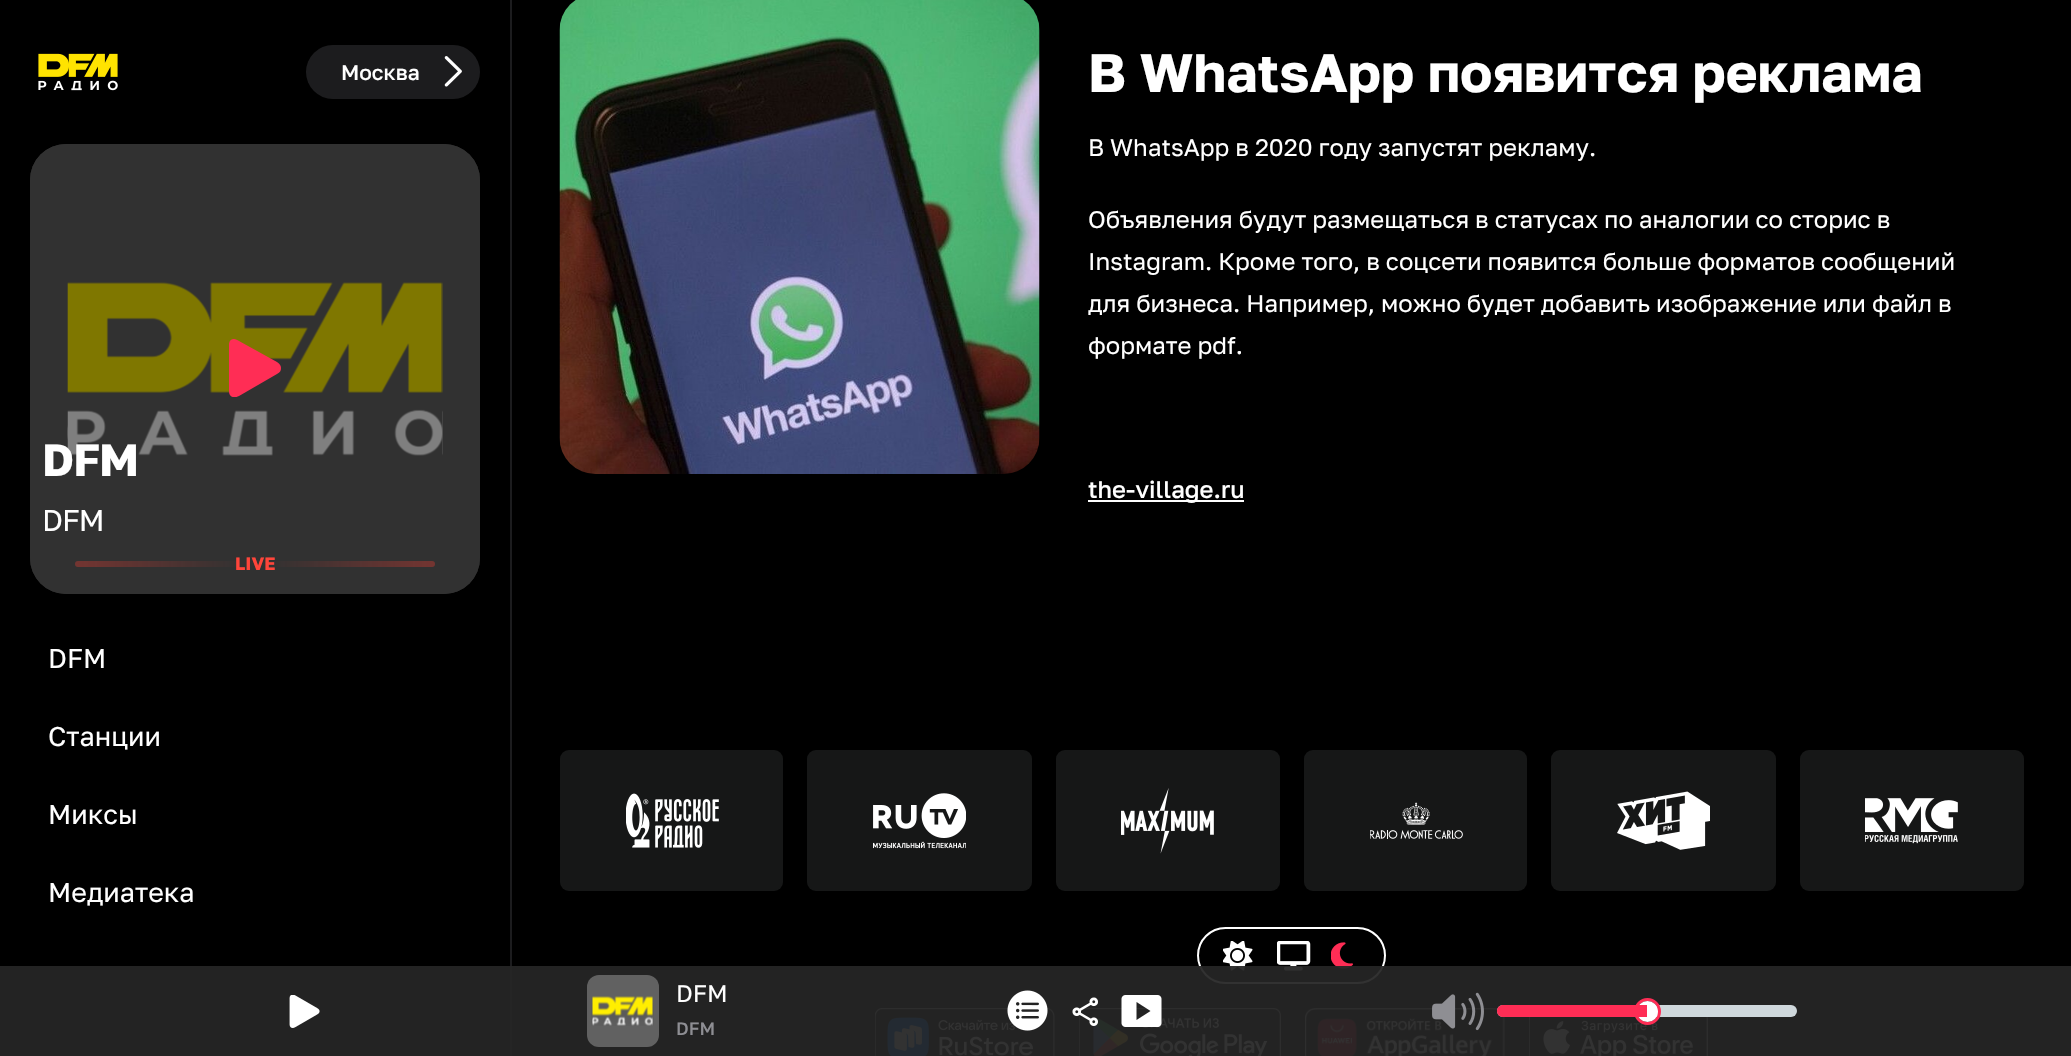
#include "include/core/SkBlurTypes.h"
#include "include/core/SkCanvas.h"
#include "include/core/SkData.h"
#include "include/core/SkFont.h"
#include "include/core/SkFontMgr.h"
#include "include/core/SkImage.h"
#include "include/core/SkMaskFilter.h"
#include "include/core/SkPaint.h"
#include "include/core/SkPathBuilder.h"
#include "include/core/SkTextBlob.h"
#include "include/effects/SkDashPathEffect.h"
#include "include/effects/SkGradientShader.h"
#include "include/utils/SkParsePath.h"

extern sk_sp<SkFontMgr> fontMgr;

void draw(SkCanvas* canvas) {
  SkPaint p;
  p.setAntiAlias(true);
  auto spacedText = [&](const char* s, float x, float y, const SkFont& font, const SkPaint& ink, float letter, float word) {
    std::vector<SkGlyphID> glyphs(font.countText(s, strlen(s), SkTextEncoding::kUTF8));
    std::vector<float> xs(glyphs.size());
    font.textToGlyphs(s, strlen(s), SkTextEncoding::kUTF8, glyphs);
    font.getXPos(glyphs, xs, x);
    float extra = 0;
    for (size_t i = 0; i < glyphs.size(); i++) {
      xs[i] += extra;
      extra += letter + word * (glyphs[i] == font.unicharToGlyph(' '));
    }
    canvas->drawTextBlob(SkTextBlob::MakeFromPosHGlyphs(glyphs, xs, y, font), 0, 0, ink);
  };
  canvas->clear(SK_ColorBLACK);
  p.setColor(SkColorSetRGB(28, 28, 30));
  canvas->drawRect(SkRect::MakeLTRB(510, 0, 512, 1056), p);
  canvas->drawImageRect(SkImages::DeferredFromEncodedData(SkData::MakeFromFileName("images/1.png")), SkRect::MakeLTRB(38, 53, 118, 91), SkSamplingOptions());
  canvas->drawRoundRect(SkRect::MakeLTRB(306, 45, 480, 99), 27, 27, p);
  canvas->drawImageRect(SkImages::DeferredFromEncodedData(SkData::MakeFromFileName("images/2.png")), SkRect::MakeLTRB(444, 56, 462, 87), SkSamplingOptions());
  p.setColor(SkColorSetRGB(97, 97, 97));
  canvas->drawRoundRect(SkRect::MakeLTRB(30, 144, 480, 594), 36, 36, p);
  canvas->drawImageRect(SkImages::DeferredFromEncodedData(SkData::MakeFromFileName("images/3.png")), SkRect::MakeLTRB(67, 282, 443, 456), SkSamplingOptions());
  p.setColor(SkColorSetARGB(128, 0, 0, 0));
  canvas->drawRoundRect(SkRect::MakeLTRB(30, 144, 480, 594), 36, 36, p);
  p.setColor(SkColorSetRGB(255, 45, 85));
  canvas->drawPath(SkPathBuilder().moveTo(234, 397).cubicTo(236, 397, 237, 397, 239, 396).lineTo(277, 374).cubicTo(280, 372, 281, 371, 281, 368).cubicTo(281, 366, 280, 364, 277, 362).lineTo(239, 341).cubicTo(237, 340, 236, 339, 234, 339).cubicTo(231, 339, 229, 341, 229, 345).lineTo(229, 391).cubicTo(229, 395, 231, 397, 234, 397).detach(), p);
  canvas->drawImageRect(SkImages::DeferredFromEncodedData(SkData::MakeFromFileName("images/4.png")), SkRect::MakeLTRB(559, 0, 1040, 474), SkSamplingOptions());
  p.setColor(SK_ColorWHITE);
  canvas->drawRect(SkRect::MakeLTRB(1088, 500, 1244, 502), p);
  p.setColor(SkColorSetRGB(22, 23, 23));
  canvas->drawRoundRect(SkRect::MakeLTRB(560, 750, 783, 891), 9, 9, p);
  canvas->drawImageRect(SkImages::DeferredFromEncodedData(SkData::MakeFromFileName("images/5.png")), SkRect::MakeLTRB(626, 793, 719, 848), SkSamplingOptions());
  canvas->drawRoundRect(SkRect::MakeLTRB(807, 750, 1032, 891), 9, 9, p);
  canvas->drawImageRect(SkImages::DeferredFromEncodedData(SkData::MakeFromFileName("images/6.png")), SkRect::MakeLTRB(873, 793, 966, 849), SkSamplingOptions());
  canvas->drawRoundRect(SkRect::MakeLTRB(1056, 750, 1280, 891), 9, 9, p);
  canvas->drawImageRect(SkImages::DeferredFromEncodedData(SkData::MakeFromFileName("images/7.png")), SkRect::MakeLTRB(1121, 788, 1214, 854), SkSamplingOptions());
  canvas->drawRoundRect(SkRect::MakeLTRB(1304, 750, 1527, 891), 9, 9, p);
  canvas->drawImageRect(SkImages::DeferredFromEncodedData(SkData::MakeFromFileName("images/8.png")), SkRect::MakeLTRB(1370, 802, 1463, 839), SkSamplingOptions());
  canvas->drawRoundRect(SkRect::MakeLTRB(1551, 750, 1776, 891), 9, 9, p);
  canvas->drawImageRect(SkImages::DeferredFromEncodedData(SkData::MakeFromFileName("images/9.png")), SkRect::MakeLTRB(1617, 791, 1710, 850), SkSamplingOptions());
  canvas->drawRoundRect(SkRect::MakeLTRB(1800, 750, 2024, 891), 9, 9, p);
  canvas->drawImageRect(SkImages::DeferredFromEncodedData(SkData::MakeFromFileName("images/10.png")), SkRect::MakeLTRB(1865, 798, 1958, 844), SkSamplingOptions());
  p.setStyle(SkPaint::kStroke_Style);
  p.setStrokeWidth(2);
  p.setColor(SK_ColorWHITE);
  canvas->drawRoundRect(SkRect::MakeLTRB(1198, 928, 1385, 983), 27.5f, 27.5f, p);
  canvas->drawImageRect(SkImages::DeferredFromEncodedData(SkData::MakeFromFileName("images/11.png")), SkRect::MakeLTRB(1223, 941, 1253, 971), SkSamplingOptions());
  canvas->drawImageRect(SkImages::DeferredFromEncodedData(SkData::MakeFromFileName("images/12.png")), SkRect::MakeLTRB(1277, 941, 1311, 971), SkSamplingOptions());
  canvas->drawImageRect(SkImages::DeferredFromEncodedData(SkData::MakeFromFileName("images/13.png")), SkRect::MakeLTRB(1331, 942, 1353, 969), SkSamplingOptions());
  canvas->drawImageRect(SkImages::DeferredFromEncodedData(SkData::MakeFromFileName("images/14.png")), SkRect::MakeLTRB(875, 1008, 1055, 1056), SkSamplingOptions());
  canvas->drawImageRect(SkImages::DeferredFromEncodedData(SkData::MakeFromFileName("images/15.png")), SkRect::MakeLTRB(1079, 1008, 1281, 1056), SkSamplingOptions());
  canvas->drawImageRect(SkImages::DeferredFromEncodedData(SkData::MakeFromFileName("images/16.png")), SkRect::MakeLTRB(1305, 1008, 1505, 1056), SkSamplingOptions());
  canvas->drawImageRect(SkImages::DeferredFromEncodedData(SkData::MakeFromFileName("images/17.png")), SkRect::MakeLTRB(1529, 1017, 1708, 1056), SkSamplingOptions());
  p.setStyle(SkPaint::kFill_Style);
  p.setColor(SkColorSetARGB(240, 37, 37, 37));
  canvas->drawRect(SkRect::MakeLTRB(0, 966, 2071, 1056), p);
  canvas->drawImageRect(SkImages::DeferredFromEncodedData(SkData::MakeFromFileName("images/18.png")), SkRect::MakeLTRB(289, 995, 320, 1028), SkSamplingOptions());
  p.setColor(SkColorSetRGB(97, 97, 97));
  canvas->drawRoundRect(SkRect::MakeLTRB(587, 975, 659, 1047), 12, 12, p);
  canvas->drawImageRect(SkImages::DeferredFromEncodedData(SkData::MakeFromFileName("images/19.png")), SkRect::MakeLTRB(591, 996, 654, 1026), SkSamplingOptions());
  canvas->drawImageRect(SkImages::DeferredFromEncodedData(SkData::MakeFromFileName("images/20.png")), SkRect::MakeLTRB(1007, 990, 1048, 1031), SkSamplingOptions());
  canvas->drawImageRect(SkImages::DeferredFromEncodedData(SkData::MakeFromFileName("images/21.png")), SkRect::MakeLTRB(1072, 997, 1098, 1026), SkSamplingOptions());
  canvas->drawImageRect(SkImages::DeferredFromEncodedData(SkData::MakeFromFileName("images/22.png")), SkRect::MakeLTRB(1121, 995, 1162, 1027), SkSamplingOptions());
  canvas->drawImageRect(SkImages::DeferredFromEncodedData(SkData::MakeFromFileName("images/23.png")), SkRect::MakeLTRB(1432, 992, 1484, 1031), SkSamplingOptions());
  p.setColor(SkColorSetRGB(207, 216, 220));
  canvas->drawRoundRect(SkRect::MakeLTRB(1497, 1005, 1797, 1017), 6, 6, p);
  p.setStyle(SkPaint::kStroke_Style);
  p.setStrokeWidth(3);
  p.setColor(SkColorSetRGB(255, 45, 85));
  canvas->drawCircle(1647.5f, 1011.5f, 12, p);
  p.setStyle(SkPaint::kFill_Style);
  p.setColor(SK_ColorWHITE);
  canvas->drawCircle(1647.5f, 1011.5f, 10.5f, p);
  p.setColor(SkColorSetRGB(255, 45, 85));
  canvas->drawPath(SkPathBuilder().moveTo(1503, 1005).lineTo(1647, 1005).lineTo(1647, 1017).lineTo(1503, 1017).cubicTo(1499.5f, 1017, 1497, 1014.5f, 1497, 1011).cubicTo(1497, 1007.5f, 1499.5f, 1005, 1503, 1005).close().detach(), p);
  SkFont font1(fontMgr->matchFamilyStyle("Golos Text", SkFontStyle(500, SkFontStyle::kNormal_Width, SkFontStyle::kUpright_Slant)), 21);
  font1.setSubpixel(true);
  p.setColor(SK_ColorWHITE);
  canvas->drawString("Москва", 341, 80, font1, p);
  SkFont font2(fontMgr->matchFamilyStyle("Golos Text", SkFontStyle::Bold()), 45);
  font2.setSubpixel(true);
  spacedText("DFM", 42, 476, font2, p, -1, 0);
  SkFont font3(fontMgr->matchFamilyStyle("Golos Text", SkFontStyle::Normal()), 30);
  font3.setSubpixel(true);
  spacedText("DFM", 42, 531, font3, p, -1, 0);
  SkFont font4(fontMgr->matchFamilyStyle("Golos Text", SkFontStyle::Bold()), 18);
  font4.setSubpixel(true);
  p.setColor(SkColorSetRGB(255, 69, 58));
  canvas->drawString("LIVE", 235, 570, font4, p);
  {
    const SkColor colors[] = {SkColorSetARGB(82, 255, 59, 48), SkColorSetARGB(0, 255, 59, 48), SkColorSetARGB(0, 255, 59, 48), SkColorSetARGB(82, 255, 59, 48)};
    const float stops[] = {0, 0.47f, 0.53f, 1};
    const SkPoint ends[] = {{75, 564}, {435, 564}};
    p.setShader(SkGradientShader::MakeLinear(ends, colors, stops, 4, SkTileMode::kClamp));
    p.setAlpha(255);
  }
  canvas->drawRoundRect(SkRect::MakeLTRB(75, 561, 435, 567), 3, 3, p);
  SkFont font5(fontMgr->matchFamilyStyle("Golos Text", SkFontStyle::Normal()), 27);
  font5.setSubpixel(true);
  p.setShader(nullptr);
  p.setColor(SK_ColorWHITE);
  canvas->drawString("DFM", 48, 668, font5, p);
  canvas->drawString("Станции", 48, 746, font5, p);
  canvas->drawString("Миксы", 48, 824, font5, p);
  canvas->drawString("Медиатека", 48, 902, font5, p);
  SkFont font6(fontMgr->matchFamilyStyle("Golos Text", SkFontStyle::Bold()), 54);
  font6.setSubpixel(true);
  canvas->drawString("В WhatsApp появится реклама", 1088, 92, font6, p);
  SkFont font7(fontMgr->matchFamilyStyle("Golos Text", SkFontStyle::Normal()), 24);
  font7.setSubpixel(true);
  canvas->drawString("В WhatsApp в 2020 году запустят рекламу.", 1088, 156, font7, p);
  canvas->drawString("Объявления будут размещаться в статусах по аналогии со сторис в", 1088, 228, font7, p);
  canvas->drawString("Instagram. Кроме того, в соцсети появится больше форматов сообщений", 1088, 270, font7, p);
  canvas->drawString("для бизнеса. Например, можно будет добавить изображение или файл в", 1088, 312, font7, p);
  canvas->drawString("формате pdf.", 1088, 354, font7, p);
  SkFont font8(fontMgr->matchFamilyStyle("Golos Text", SkFontStyle(500, SkFontStyle::kNormal_Width, SkFontStyle::kUpright_Slant)), 24);
  font8.setSubpixel(true);
  canvas->drawString("the-village.ru", 1088, 498, font8, p);
  canvas->drawString("DFM", 676, 1002, font7, p);
  SkFont font9(fontMgr->matchFamilyStyle("Golos Text", SkFontStyle(500, SkFontStyle::kNormal_Width, SkFontStyle::kUpright_Slant)), 18);
  font9.setSubpixel(true);
  p.setColor(SkColorSetRGB(142, 142, 147));
  canvas->drawString("DFM", 676, 1035, font9, p);
}
